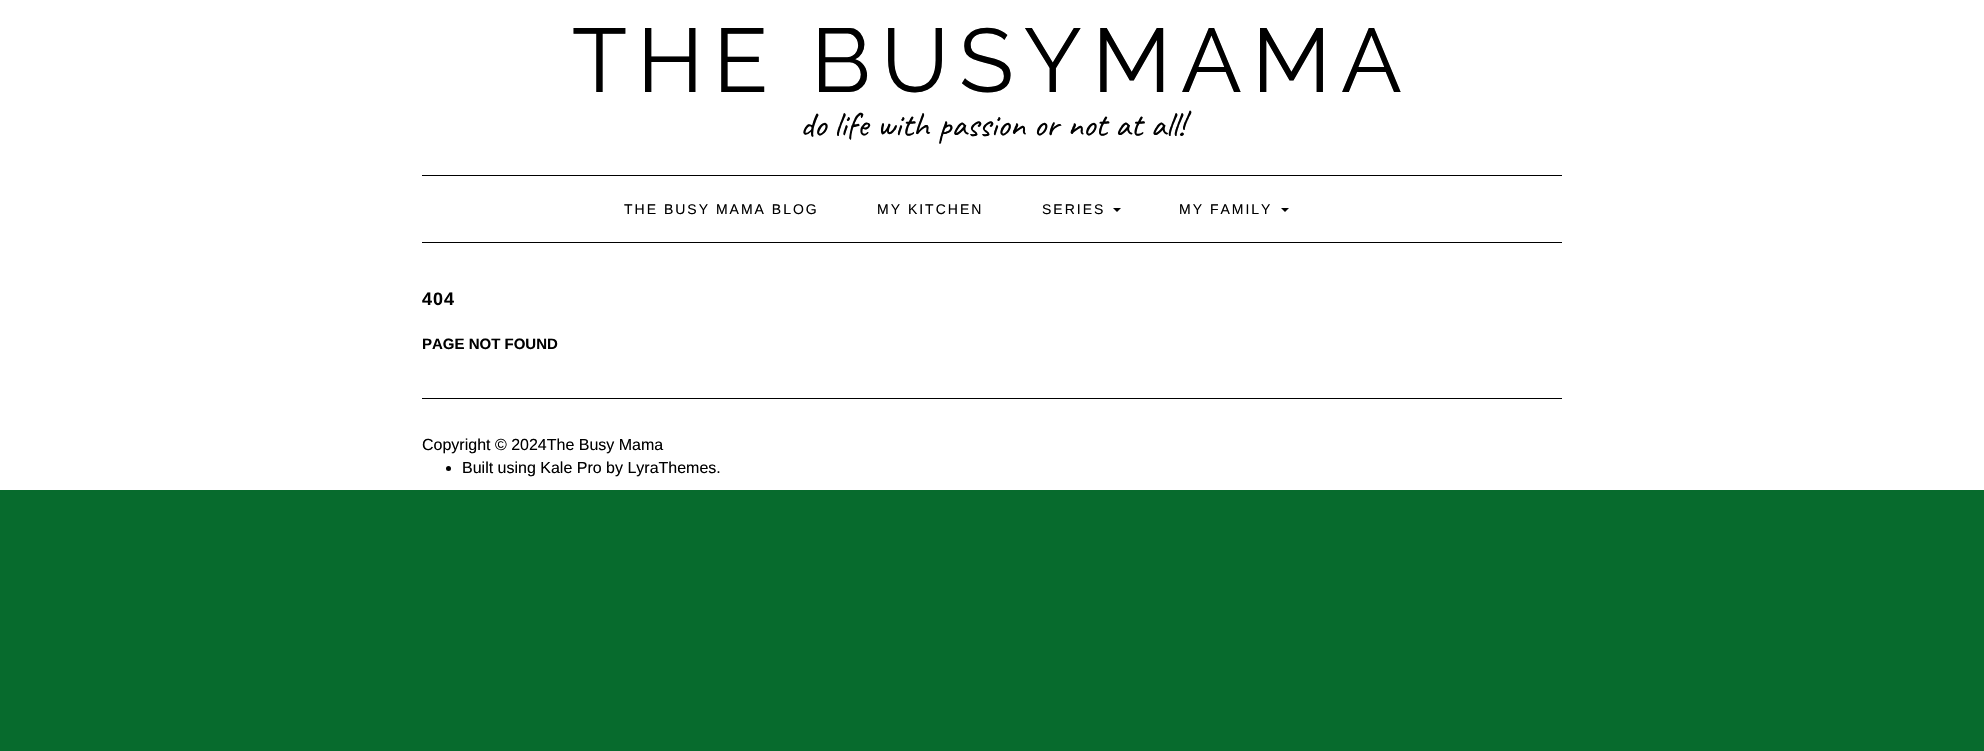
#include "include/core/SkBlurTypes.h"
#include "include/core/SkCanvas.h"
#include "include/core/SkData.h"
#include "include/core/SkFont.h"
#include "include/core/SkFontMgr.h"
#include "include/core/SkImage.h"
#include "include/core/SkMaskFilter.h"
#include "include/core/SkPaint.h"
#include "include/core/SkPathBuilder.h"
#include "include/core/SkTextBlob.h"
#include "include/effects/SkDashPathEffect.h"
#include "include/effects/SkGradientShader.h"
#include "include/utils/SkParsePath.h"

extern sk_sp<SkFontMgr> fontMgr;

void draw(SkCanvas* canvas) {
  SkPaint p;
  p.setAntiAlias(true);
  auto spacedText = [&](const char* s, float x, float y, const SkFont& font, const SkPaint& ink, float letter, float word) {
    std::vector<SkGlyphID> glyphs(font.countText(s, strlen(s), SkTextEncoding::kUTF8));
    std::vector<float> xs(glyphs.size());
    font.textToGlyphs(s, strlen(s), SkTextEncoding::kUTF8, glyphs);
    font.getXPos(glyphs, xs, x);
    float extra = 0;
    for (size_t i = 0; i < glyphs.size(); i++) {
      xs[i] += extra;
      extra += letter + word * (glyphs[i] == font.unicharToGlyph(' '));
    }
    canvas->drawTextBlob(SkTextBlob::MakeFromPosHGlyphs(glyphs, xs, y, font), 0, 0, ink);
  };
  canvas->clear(SkColorSetRGB(7, 107, 45));
  p.setColor(SK_ColorWHITE);
  canvas->drawRect(SkRect::MakeLTRB(0, 0, 1984, 490), p);
  p.setColor(SK_ColorBLACK);
  canvas->drawRect(SkRect::MakeLTRB(422, 175, 1562, 176), p);
  canvas->drawRect(SkRect::MakeLTRB(422, 242, 1562, 243), p);
  canvas->drawPath(SkPathBuilder().moveTo(1113, 208).lineTo(1121, 208).lineTo(1117, 212).close().detach(), p);
  canvas->drawPath(SkPathBuilder().moveTo(1281, 208).lineTo(1289, 208).lineTo(1285, 212).close().detach(), p);
  canvas->drawRect(SkRect::MakeLTRB(422, 398, 1562, 399), p);
  canvas->drawCircle(448.5f, 468.5f, 2.5f, p);
  SkFont font1(fontMgr->matchFamilyStyle("Raleway", SkFontStyle::Normal()), 90);
  font1.setSubpixel(true);
  spacedText("THE BUSYMAMA", 572, 92, font1, p, 10, 0);
  SkFont font2(fontMgr->matchFamilyStyle("Caveat", SkFontStyle::Normal()), 35);
  font2.setSubpixel(true);
  canvas->drawString("do", 800, 136, font2, p);
  canvas->drawString("life with", 834, 136, font2, p);
  canvas->drawString("passion or not at all!", 938, 136, font2, p);
  SkFont font3(fontMgr->matchFamilyStyle("Liberation Sans", SkFontStyle::Normal()), 14);
  font3.setSubpixel(true);
  spacedText("THE BUSY MAMA BLOG", 624, 214, font3, p, 2, 0);
  spacedText("MY KITCHEN", 877, 214, font3, p, 2, 0);
  spacedText("SERIES", 1042, 214, font3, p, 2, 0);
  spacedText("MY FAMILY", 1179, 214, font3, p, 2, 0);
  SkFont font4(fontMgr->matchFamilyStyle("Liberation Sans", SkFontStyle::Bold()), 18);
  font4.setSubpixel(true);
  spacedText("404", 422, 305, font4, p, 1, 0);
  SkFont font5(fontMgr->matchFamilyStyle("Liberation Sans", SkFontStyle::Bold()), 15);
  font5.setSubpixel(true);
  canvas->drawString("PAGE NOT FOUND", 422, 349, font5, p);
  SkFont font6(fontMgr->matchFamilyStyle("Liberation Sans", SkFontStyle::Normal()), 16);
  font6.setSubpixel(true);
  canvas->drawString("Copyright © 2024The Busy Mama", 422, 450, font6, p);
  canvas->drawString("Built using Kale Pro by LyraThemes.", 462, 473, font6, p);
}
